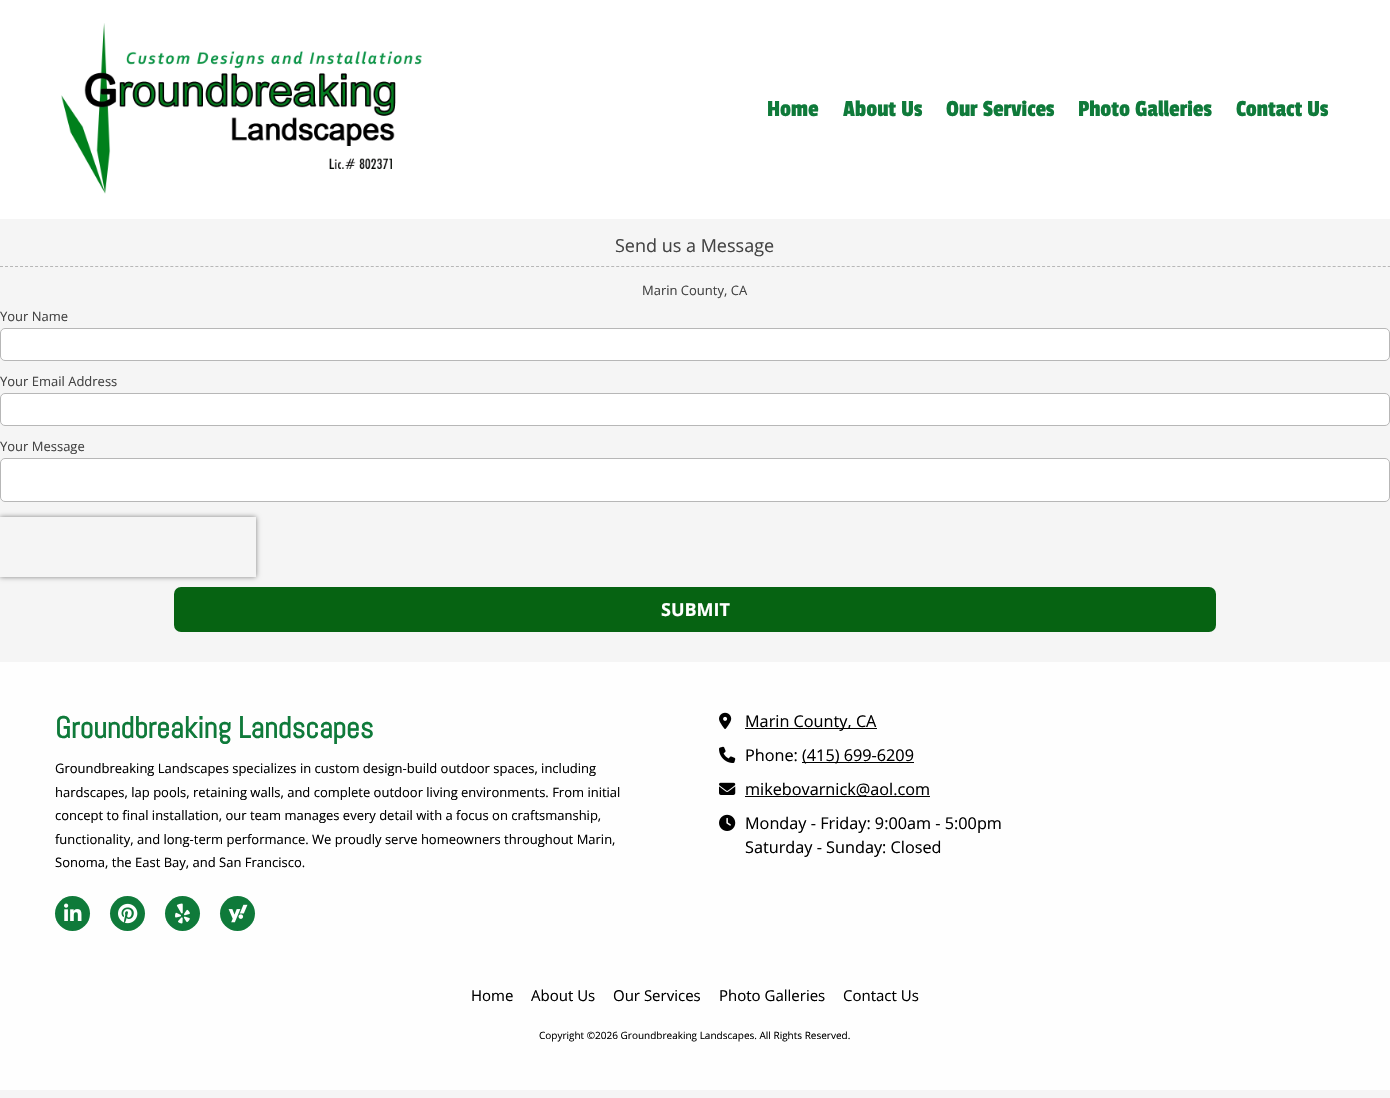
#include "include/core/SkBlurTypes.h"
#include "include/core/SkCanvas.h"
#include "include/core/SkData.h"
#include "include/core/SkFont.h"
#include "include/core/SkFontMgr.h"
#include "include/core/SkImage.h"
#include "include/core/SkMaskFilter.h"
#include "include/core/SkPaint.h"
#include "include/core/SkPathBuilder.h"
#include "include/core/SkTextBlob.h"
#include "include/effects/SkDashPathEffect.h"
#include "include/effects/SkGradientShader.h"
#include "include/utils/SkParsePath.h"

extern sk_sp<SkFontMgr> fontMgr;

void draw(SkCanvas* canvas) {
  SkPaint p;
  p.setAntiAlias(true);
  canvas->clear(SkColorSetRGB(245, 245, 245));
  p.setColor(SK_ColorWHITE);
  canvas->drawRect(SkRect::MakeLTRB(0, 0, 1390, 219), p);
  canvas->drawImageRect(SkImages::DeferredFromEncodedData(SkData::MakeFromFileName("images/1.png")), SkRect::MakeLTRB(61, 23, 422, 194), SkSamplingOptions());
  p.setStyle(SkPaint::kStroke_Style);
  p.setStrokeWidth(1);
  p.setColor(SkColorSetRGB(183, 183, 183));
  p.setPathEffect(SkDashPathEffect::Make({{3, 2.01f}}, 0));
  canvas->drawPath(SkPathBuilder().moveTo(0, 266.5f).lineTo(1390, 266.5f).detach(), p);
  p.setPathEffect(nullptr);
  p.setStyle(SkPaint::kFill_Style);
  p.setColor(SK_ColorWHITE);
  canvas->drawRoundRect(SkRect::MakeLTRB(0.5f, 328.5f, 1389.5f, 360.5f), 4.5f, 4.5f, p);
  p.setStyle(SkPaint::kStroke_Style);
  p.setColor(SkColorSetRGB(183, 183, 183));
  canvas->drawRoundRect(SkRect::MakeLTRB(0.5f, 328.5f, 1389.5f, 360.5f), 4.5f, 4.5f, p);
  p.setStyle(SkPaint::kFill_Style);
  p.setColor(SK_ColorWHITE);
  canvas->drawRoundRect(SkRect::MakeLTRB(0.5f, 393.5f, 1389.5f, 425.5f), 4.5f, 4.5f, p);
  p.setStyle(SkPaint::kStroke_Style);
  p.setColor(SkColorSetRGB(183, 183, 183));
  canvas->drawRoundRect(SkRect::MakeLTRB(0.5f, 393.5f, 1389.5f, 425.5f), 4.5f, 4.5f, p);
  p.setStyle(SkPaint::kFill_Style);
  p.setColor(SK_ColorWHITE);
  canvas->drawRoundRect(SkRect::MakeLTRB(0.5f, 458.5f, 1389.5f, 501.5f), 4.5f, 4.5f, p);
  p.setStyle(SkPaint::kStroke_Style);
  p.setColor(SkColorSetRGB(183, 183, 183));
  canvas->drawRoundRect(SkRect::MakeLTRB(0.5f, 458.5f, 1389.5f, 501.5f), 4.5f, 4.5f, p);
  canvas->save();
  canvas->clipPath(SkPathBuilder(SkPathFillType::kEvenOdd).moveTo(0, 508).lineTo(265, 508).lineTo(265, 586).lineTo(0, 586).close().moveTo(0, 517).lineTo(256, 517).lineTo(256, 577).lineTo(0, 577).close().detach(), true);
  p.setStyle(SkPaint::kFill_Style);
  p.setColor(SkColorSetRGB(128, 128, 128));
  p.setMaskFilter(SkMaskFilter::MakeBlur(kNormal_SkBlurStyle, 2.5f));
  canvas->drawRect(SkRect::MakeLTRB(0, 517, 256, 577), p);
  p.setMaskFilter(nullptr);
  canvas->restore();
  p.setColor(SkColorSetRGB(6, 99, 18));
  canvas->drawRoundRect(SkRect::MakeLTRB(174, 587, 1216, 632), 7, 7, p);
  p.setColor(SkColorSetRGB(254, 254, 254));
  canvas->drawRect(SkRect::MakeLTRB(0, 662, 1390, 1090), p);
  p.setColor(SkColorSetRGB(15, 122, 58));
  canvas->drawCircle(72.5f, 913.5f, 17.5f, p);
  canvas->drawImageRect(SkImages::DeferredFromEncodedData(SkData::MakeFromFileName("images/2.png")), SkRect::MakeLTRB(64, 903, 82, 921), SkSamplingOptions());
  canvas->drawCircle(127.5f, 913.5f, 17.5f, p);
  canvas->drawImageRect(SkImages::DeferredFromEncodedData(SkData::MakeFromFileName("images/3.png")), SkRect::MakeLTRB(118, 903, 138, 924), SkSamplingOptions());
  canvas->drawCircle(182.5f, 913.5f, 17.5f, p);
  canvas->drawImageRect(SkImages::DeferredFromEncodedData(SkData::MakeFromFileName("images/4.png")), SkRect::MakeLTRB(175, 903, 190, 924), SkSamplingOptions());
  canvas->drawCircle(237.5f, 913.5f, 17.5f, p);
  canvas->drawImageRect(SkImages::DeferredFromEncodedData(SkData::MakeFromFileName("images/5.png")), SkRect::MakeLTRB(228, 904, 248, 923), SkSamplingOptions());
  canvas->drawImageRect(SkImages::DeferredFromEncodedData(SkData::MakeFromFileName("images/6.png")), SkRect::MakeLTRB(719, 712, 732, 729), SkSamplingOptions());
  p.setColor(SK_ColorBLACK);
  canvas->drawRect(SkRect::MakeLTRB(745, 728, 877, 729), p);
  canvas->drawImageRect(SkImages::DeferredFromEncodedData(SkData::MakeFromFileName("images/7.png")), SkRect::MakeLTRB(719, 746, 736, 763), SkSamplingOptions());
  canvas->drawRect(SkRect::MakeLTRB(802, 762, 914, 763), p);
  canvas->drawImageRect(SkImages::DeferredFromEncodedData(SkData::MakeFromFileName("images/8.png")), SkRect::MakeLTRB(719, 782, 736, 795), SkSamplingOptions());
  canvas->drawRect(SkRect::MakeLTRB(745, 796, 930, 797), p);
  canvas->drawImageRect(SkImages::DeferredFromEncodedData(SkData::MakeFromFileName("images/9.png")), SkRect::MakeLTRB(719, 814, 736, 831), SkSamplingOptions());
  SkFont font1(fontMgr->matchFamilyStyle("Passion One", SkFontStyle::Normal()), 24);
  font1.setSubpixel(true);
  p.setColor(SkColorSetRGB(15, 122, 58));
  canvas->drawString("Home", 767, 116, font1, p);
  canvas->drawString("About Us", 843, 116, font1, p);
  canvas->drawString("Our Services", 946, 116, font1, p);
  canvas->drawString("Photo Galleries", 1078, 116, font1, p);
  canvas->drawString("Contact Us", 1236, 116, font1, p);
  SkFont font2(fontMgr->matchFamilyStyle("Open Sans", SkFontStyle::Normal()), 18);
  font2.setSubpixel(true);
  p.setColor(SkColorSetRGB(68, 68, 68));
  canvas->drawString("Send us a Message", 615, 252, font2, p);
  SkFont font3(fontMgr->matchFamilyStyle("Open Sans", SkFontStyle::Normal()), 13);
  font3.setSubpixel(true);
  canvas->drawString("Marin County, CA", 642, 295, font3, p);
  canvas->drawString("Your Name", 0, 321, font3, p);
  canvas->drawString("Your Email Address", 0, 386, font3, p);
  canvas->drawString("Your Message", 0, 451, font3, p);
  SkFont font4(fontMgr->matchFamilyStyle("Open Sans", SkFontStyle::Bold()), 18);
  font4.setSubpixel(true);
  p.setColor(SK_ColorWHITE);
  canvas->drawString("SUBMIT", 661, 616, font4, p);
  SkFont font5(fontMgr->matchFamilyStyle("Abel", SkFontStyle::Bold()), 30);
  font5.setSubpixel(true);
  p.setColor(SkColorSetRGB(15, 122, 58));
  canvas->drawString("Groundbreaking Landscapes", 55, 738, font5, p);
  p.setColor(SK_ColorBLACK);
  canvas->drawString("Groundbreaking Landscapes specializes in custom design-build outdoor spaces, including", 55, 773, font3, p);
  canvas->drawString("hardscapes, lap pools, retaining walls, and complete outdoor living environments. From initial", 55, 797, font3, p);
  canvas->drawString("concept to final installation, our team manages every detail with a focus on craftsmanship,", 55, 820, font3, p);
  canvas->drawString("functionality, and long-term performance. We proudly serve homeowners throughout Marin,", 55, 844, font3, p);
  canvas->drawString("Sonoma, the East Bay, and San Francisco.", 55, 867, font3, p);
  SkFont font6(fontMgr->matchFamilyStyle("Open Sans", SkFontStyle::Normal()), 16.25f);
  font6.setSubpixel(true);
  canvas->drawString("Marin County, CA", 745, 727, font6, p);
  canvas->drawString("Phone:", 745, 761, font6, p);
  canvas->drawString("(415) 699-6209", 802, 761, font6, p);
  canvas->drawString("mikebovarnick@aol.com", 745, 795, font6, p);
  canvas->drawString("Monday - Friday: 9:00am - 5:00pm", 745, 829, font6, p);
  canvas->drawString("Saturday - Sunday: Closed", 745, 853, font6, p);
  SkFont font7(fontMgr->matchFamilyStyle("Open Sans", SkFontStyle::Normal()), 15);
  font7.setSubpixel(true);
  canvas->drawString("Home", 471, 1001, font7, p);
  canvas->drawString("About Us", 531, 1001, font7, p);
  canvas->drawString("Our Services", 613, 1001, font7, p);
  canvas->drawString("Photo Galleries", 719, 1001, font7, p);
  canvas->drawString("Contact Us", 843, 1001, font7, p);
  SkFont font8(fontMgr->matchFamilyStyle("Open Sans", SkFontStyle::Normal()), 10);
  font8.setSubpixel(true);
  canvas->drawString("Copyright ©2026 Groundbreaking Landscapes. All Rights Reserved.", 539, 1039, font8, p);
}
